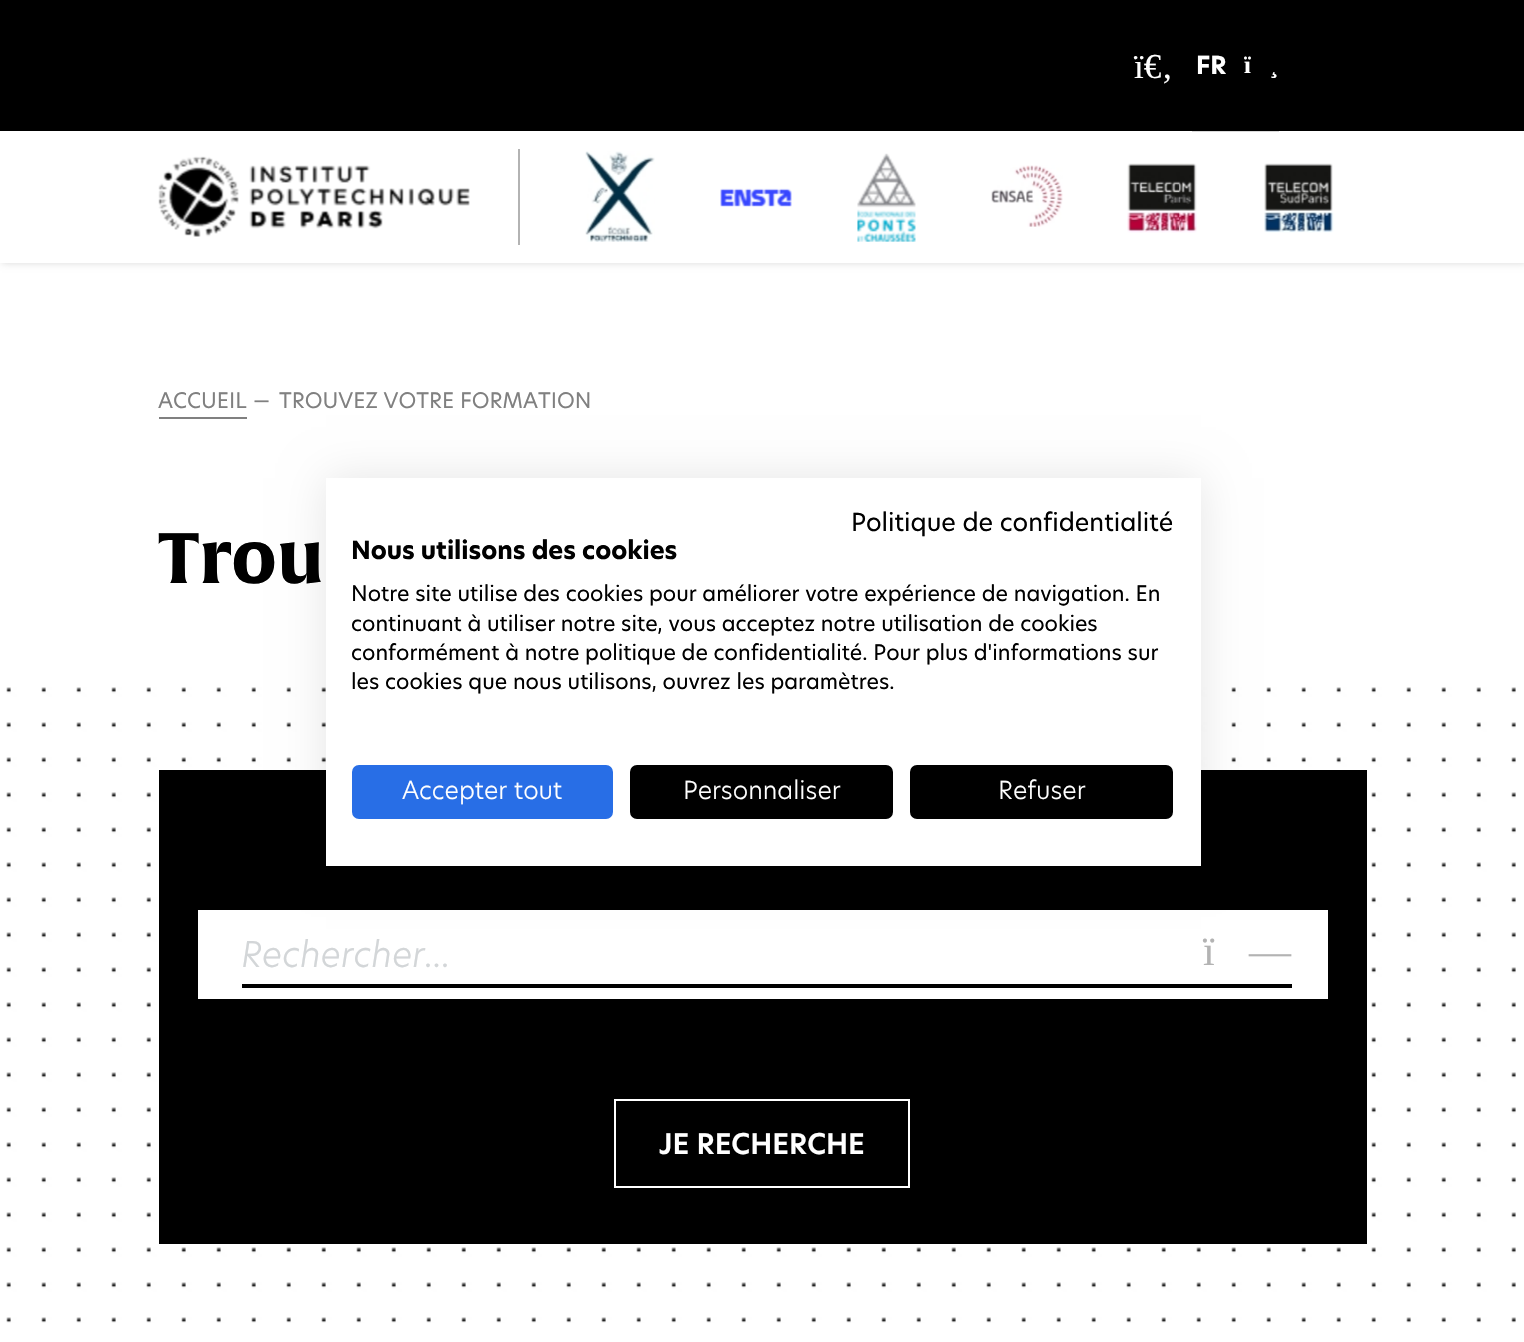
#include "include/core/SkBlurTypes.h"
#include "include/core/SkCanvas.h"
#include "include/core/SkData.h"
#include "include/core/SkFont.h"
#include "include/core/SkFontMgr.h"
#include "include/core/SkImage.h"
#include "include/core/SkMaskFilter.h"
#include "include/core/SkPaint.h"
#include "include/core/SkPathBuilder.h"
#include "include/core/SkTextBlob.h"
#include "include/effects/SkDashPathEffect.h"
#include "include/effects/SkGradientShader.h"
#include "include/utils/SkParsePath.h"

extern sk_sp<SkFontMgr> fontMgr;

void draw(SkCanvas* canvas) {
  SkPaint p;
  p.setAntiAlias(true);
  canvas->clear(SK_ColorWHITE);
  p.setColor(SkColorSetARGB(38, 0, 0, 0));
  p.setMaskFilter(SkMaskFilter::MakeBlur(kNormal_SkBlurStyle, 3.5f));
  canvas->drawRect(SkRect::MakeLTRB(2, 0, 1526, 263), p);
  p.setMaskFilter(nullptr);
  p.setColor(SK_ColorWHITE);
  canvas->drawRect(SkRect::MakeLTRB(0, 131, 1524, 263), p);
  p.setColor(SkColorSetRGB(217, 217, 217));
  canvas->drawRect(SkRect::MakeLTRB(1192, 131, 1279, 132), p);
  p.setColor(SK_ColorBLACK);
  canvas->drawRect(SkRect::MakeLTRB(0, 0, 1524, 131), p);
  p.setColor(SkColorSetRGB(179, 179, 179));
  canvas->drawRect(SkRect::MakeLTRB(518, 149, 520, 245), p);
  canvas->drawImageRect(SkImages::DeferredFromEncodedData(SkData::MakeFromFileName("images/1.png")), SkRect::MakeLTRB(158, 156, 470, 237), SkSamplingOptions());
  canvas->drawImageRect(SkImages::DeferredFromEncodedData(SkData::MakeFromFileName("images/2.png")), SkRect::MakeLTRB(585, 151, 655, 242), SkSamplingOptions());
  canvas->drawImageRect(SkImages::DeferredFromEncodedData(SkData::MakeFromFileName("images/3.png")), SkRect::MakeLTRB(720, 188, 792, 207), SkSamplingOptions());
  canvas->drawImageRect(SkImages::DeferredFromEncodedData(SkData::MakeFromFileName("images/4.png")), SkRect::MakeLTRB(857, 153, 916, 242), SkSamplingOptions());
  canvas->drawImageRect(SkImages::DeferredFromEncodedData(SkData::MakeFromFileName("images/5.png")), SkRect::MakeLTRB(991, 165, 1063, 227), SkSamplingOptions());
  canvas->drawImageRect(SkImages::DeferredFromEncodedData(SkData::MakeFromFileName("images/6.png")), SkRect::MakeLTRB(1127, 163, 1197, 233), SkSamplingOptions());
  canvas->drawImageRect(SkImages::DeferredFromEncodedData(SkData::MakeFromFileName("images/7.png")), SkRect::MakeLTRB(1264, 163, 1334, 233), SkSamplingOptions());
  p.setColor(SkColorSetRGB(128, 128, 128));
  canvas->drawRect(SkRect::MakeLTRB(159, 417, 247, 419), p);
  canvas->drawImageRect(SkImages::DeferredFromEncodedData(SkData::MakeFromFileName("images/8.png")), SkRect::MakeLTRB(6, 687, 1516, 1323), SkSamplingOptions());
  p.setColor(SK_ColorBLACK);
  canvas->drawRect(SkRect::MakeLTRB(159, 770, 1367, 1244), p);
  p.setColor(SK_ColorWHITE);
  canvas->drawRect(SkRect::MakeLTRB(198, 910, 1328, 999), p);
  p.setColor(SK_ColorBLACK);
  canvas->drawRect(SkRect::MakeLTRB(242, 984, 1292, 988), p);
  p.setStyle(SkPaint::kStroke_Style);
  p.setStrokeWidth(2);
  p.setColor(SK_ColorWHITE);
  canvas->drawRect(SkRect::MakeLTRB(615, 1100, 909, 1187), p);
  p.setStyle(SkPaint::kFill_Style);
  p.setColor(SkColorSetARGB(26, 0, 0, 0));
  p.setMaskFilter(SkMaskFilter::MakeBlur(kNormal_SkBlurStyle, 21));
  canvas->drawRect(SkRect::MakeLTRB(326, 478, 1201, 866), p);
  p.setMaskFilter(nullptr);
  p.setColor(SK_ColorWHITE);
  canvas->drawRect(SkRect::MakeLTRB(326, 478, 1201, 866), p);
  p.setColor(SkColorSetRGB(40, 110, 230));
  canvas->drawRoundRect(SkRect::MakeLTRB(353, 766, 612, 818), 6, 6, p);
  p.setStyle(SkPaint::kStroke_Style);
  canvas->drawRoundRect(SkRect::MakeLTRB(353, 766, 612, 818), 6, 6, p);
  p.setStyle(SkPaint::kFill_Style);
  p.setColor(SK_ColorBLACK);
  canvas->drawRoundRect(SkRect::MakeLTRB(631, 766, 892, 818), 6, 6, p);
  p.setStyle(SkPaint::kStroke_Style);
  canvas->drawRoundRect(SkRect::MakeLTRB(631, 766, 892, 818), 6, 6, p);
  p.setStyle(SkPaint::kFill_Style);
  canvas->drawRoundRect(SkRect::MakeLTRB(911, 766, 1172, 818), 6, 6, p);
  p.setStyle(SkPaint::kStroke_Style);
  canvas->drawRoundRect(SkRect::MakeLTRB(911, 766, 1172, 818), 6, 6, p);
  SkFont font1(fontMgr->matchFamilyStyle("Liberation Serif", SkFontStyle::Normal()), 35);
  font1.setSubpixel(true);
  p.setStyle(SkPaint::kFill_Style);
  p.setColor(SK_ColorWHITE);
  canvas->drawString("ï€‚", 1134, 78, font1, p);
  SkFont font2(fontMgr->matchFamilyStyle("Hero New", SkFontStyle::Bold()), 24.5f);
  font2.setSubpixel(true);
  canvas->drawString("FR", 1196, 74, font2, p);
  SkFont font3(fontMgr->matchFamilyStyle("Liberation Serif", SkFontStyle::Bold()), 24.5f);
  font3.setSubpixel(true);
  canvas->drawString("ï", 1244, 73, font3, p);
  canvas->drawString("¸", 1270, 73, font3, p);
  SkFont font4(fontMgr->matchFamilyStyle("Hero New", SkFontStyle::Normal()), 21);
  font4.setSubpixel(true);
  p.setColor(SkColorSetRGB(128, 128, 128));
  canvas->drawString("ACCUEIL", 158, 408, font4, p);
  canvas->drawString("—", 253, 408, font4, p);
  canvas->drawString("TROUVEZ VOTRE FORMATION", 279, 408, font4, p);
  SkFont font5(fontMgr->matchFamilyStyle("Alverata", SkFontStyle::Bold()), 70);
  font5.setSubpixel(true);
  p.setColor(SK_ColorBLACK);
  canvas->drawString("Trou", 158, 583, font5, p);
  SkFont font6(fontMgr->matchFamilyStyle("Hero New", SkFontStyle(300, SkFontStyle::kNormal_Width, SkFontStyle::kItalic_Slant)), 35);
  font6.setSubpixel(true);
  p.setColor(SkColorSetRGB(211, 214, 216));
  canvas->drawString("Rechercher...", 241, 967, font6, p);
  SkFont font7(fontMgr->matchFamilyStyle("Liberation Serif", SkFontStyle::Normal()), 42);
  font7.setSubpixel(true);
  p.setColor(SkColorSetRGB(179, 179, 179));
  canvas->drawString("ï", 1203, 965, font7, p);
  canvas->drawString("—", 1249, 965, font7, p);
  SkFont font8(fontMgr->matchFamilyStyle("Hero New", SkFontStyle(600, SkFontStyle::kNormal_Width, SkFontStyle::kUpright_Slant)), 28);
  font8.setSubpixel(true);
  p.setColor(SK_ColorWHITE);
  canvas->drawString("JE RECHERCHE", 659, 1154, font8, p);
  SkFont font9(fontMgr->matchFamilyStyle("Hero New", SkFontStyle::Normal()), 24.5f);
  font9.setSubpixel(true);
  p.setColor(SK_ColorBLACK);
  canvas->drawString("Politique de confidentialité", 851, 531, font9, p);
  canvas->drawString("Nous utilisons des cookies", 351, 559, font2, p);
  canvas->drawString("Notre site utilise des cookies pour améliorer votre expérience de navigation. En", 351, 601, font4, p);
  canvas->drawString("continuant à utiliser notre site, vous acceptez notre utilisation de cookies", 351, 631, font4, p);
  canvas->drawString("conformément à notre politique de confidentialité. Pour plus d'informations sur", 351, 660, font4, p);
  canvas->drawString("les cookies que nous utilisons, ouvrez les paramètres.", 351, 689, font4, p);
  SkFont font10(fontMgr->matchFamilyStyle("Hero New", SkFontStyle(300, SkFontStyle::kNormal_Width, SkFontStyle::kUpright_Slant)), 24.5f);
  font10.setSubpixel(true);
  p.setColor(SK_ColorWHITE);
  canvas->drawString("Accepter tout", 402, 799, font10, p);
  canvas->drawString("Personnaliser", 683, 799, font10, p);
  canvas->drawString("Refuser", 998, 799, font10, p);
}
